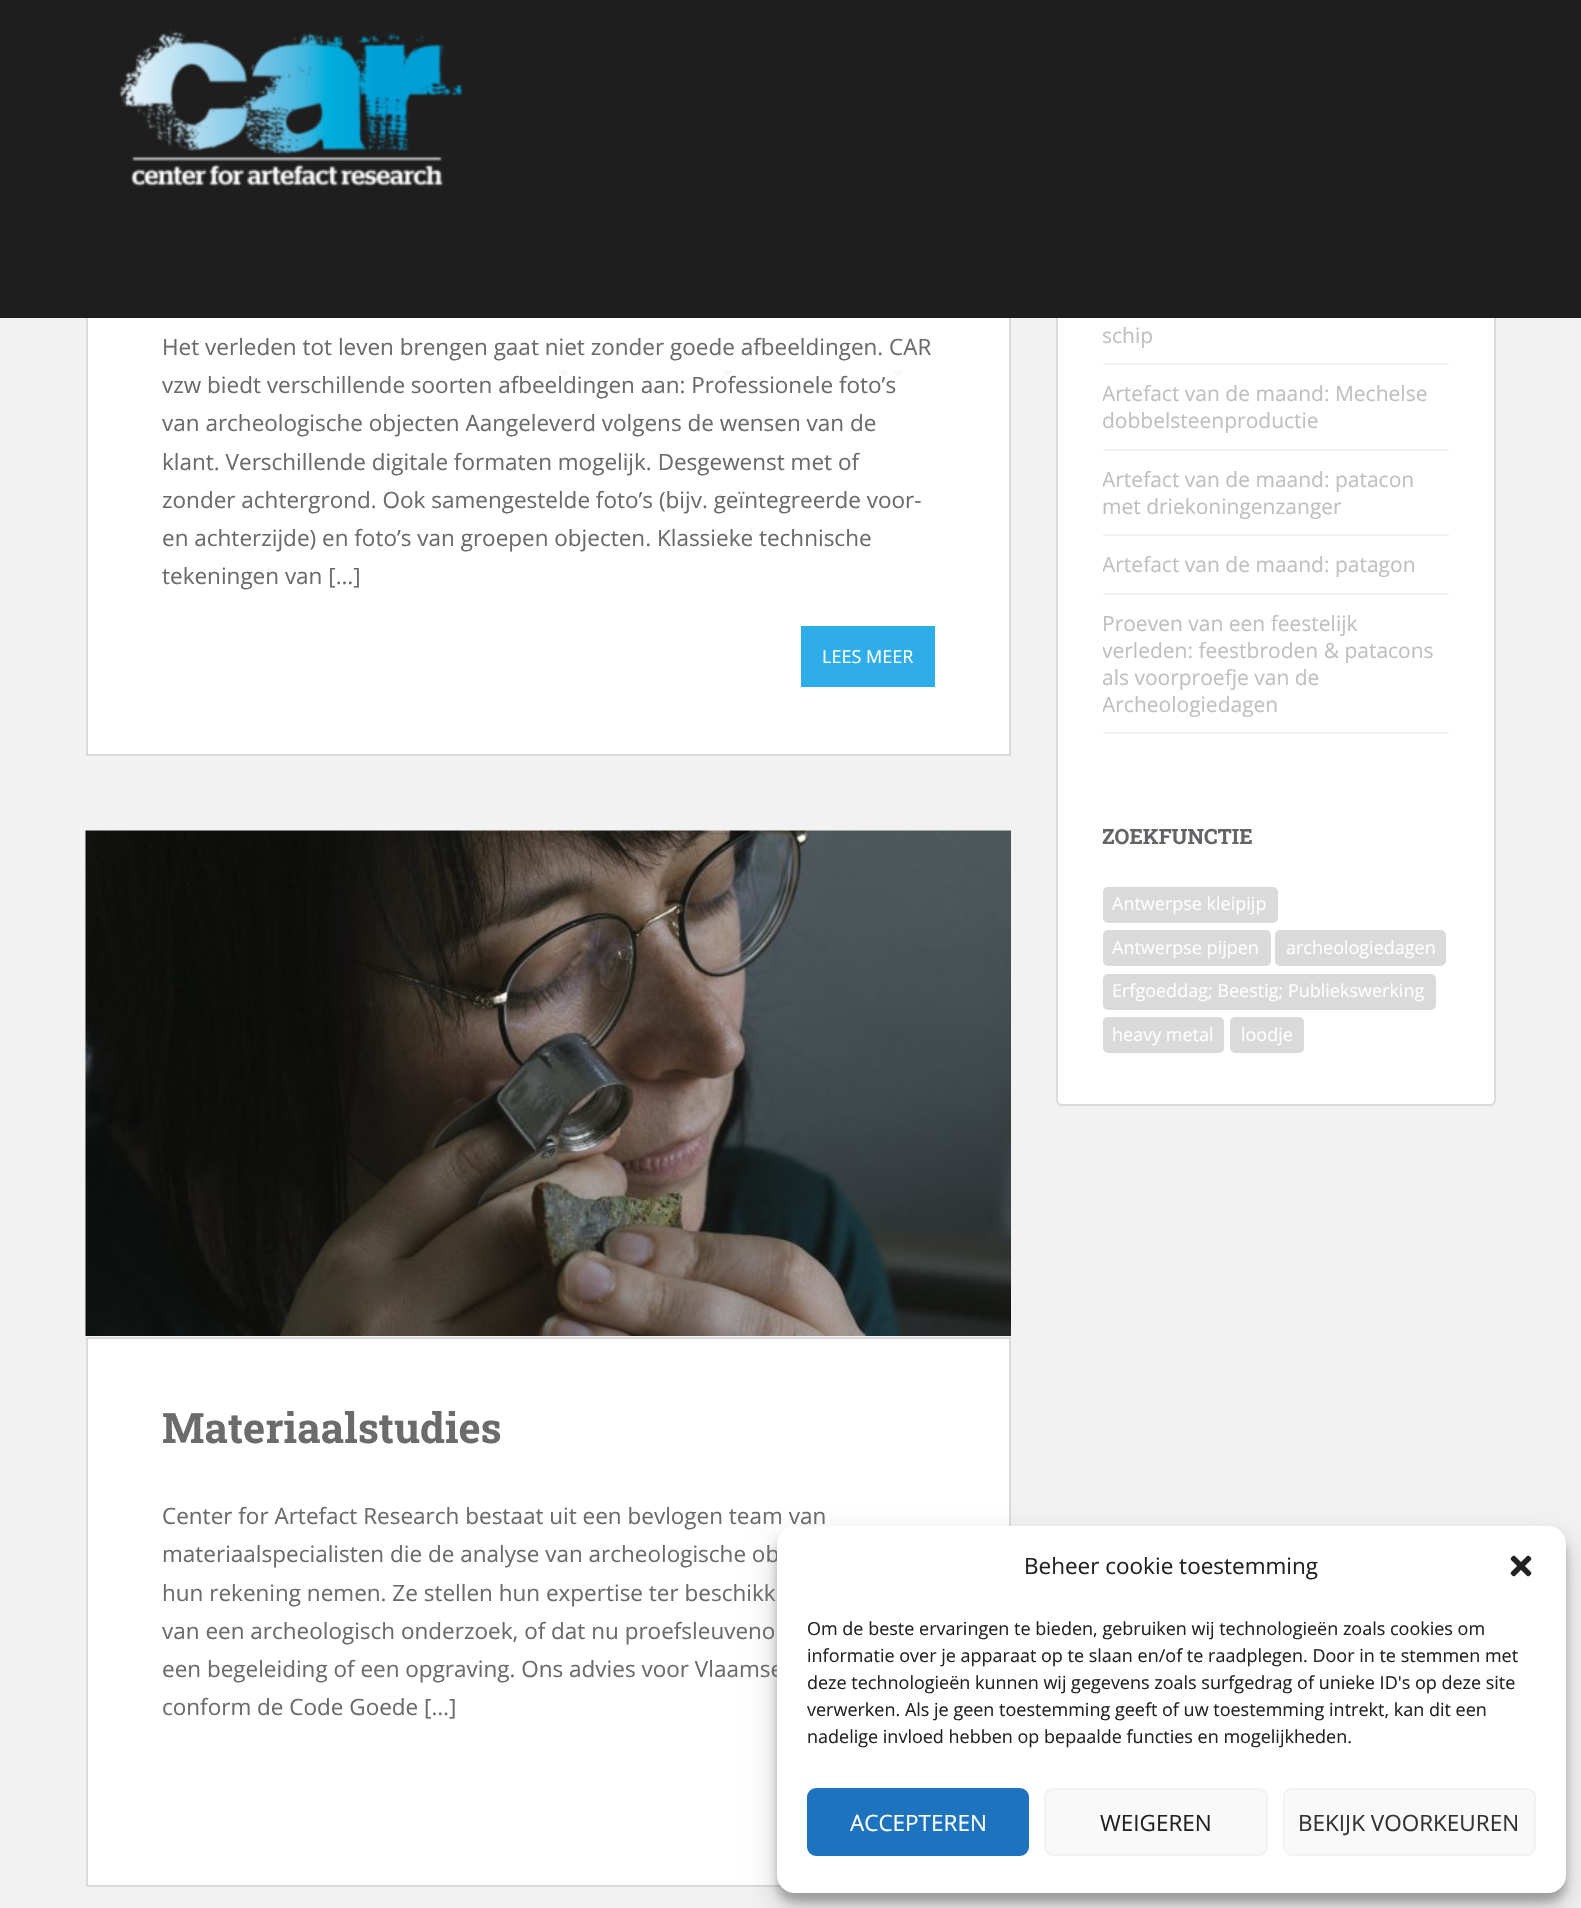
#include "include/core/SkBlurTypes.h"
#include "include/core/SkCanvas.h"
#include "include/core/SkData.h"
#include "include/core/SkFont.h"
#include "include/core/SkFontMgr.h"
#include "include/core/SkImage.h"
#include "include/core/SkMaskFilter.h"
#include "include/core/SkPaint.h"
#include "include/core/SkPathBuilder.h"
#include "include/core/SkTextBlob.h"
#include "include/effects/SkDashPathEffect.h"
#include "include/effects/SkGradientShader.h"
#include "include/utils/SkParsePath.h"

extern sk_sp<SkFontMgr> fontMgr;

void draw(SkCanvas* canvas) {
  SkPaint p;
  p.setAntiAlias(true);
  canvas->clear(SkColorSetRGB(242, 242, 242));
  p.setColor(SK_ColorWHITE);
  canvas->drawRect(SkRect::MakeLTRB(88, 318, 1009, 754), p);
  p.setStyle(SkPaint::kStroke_Style);
  p.setStrokeWidth(2);
  p.setColor(SkColorSetRGB(218, 218, 218));
  canvas->drawRect(SkRect::MakeLTRB(87, 169, 1010, 755), p);
  p.setStyle(SkPaint::kFill_Style);
  p.setColor(SK_ColorWHITE);
  canvas->drawRoundRect(SkRect::MakeLTRB(1057, 63, 1495, 1105), 5, 5, p);
  p.setStyle(SkPaint::kStroke_Style);
  p.setColor(SkColorSetRGB(218, 218, 218));
  canvas->drawRoundRect(SkRect::MakeLTRB(1057, 63, 1495, 1105), 5, 5, p);
  p.setStyle(SkPaint::kFill_Style);
  p.setColor(SkColorSetRGB(30, 30, 30));
  canvas->drawRect(SkRect::MakeLTRB(0, 0, 1581, 318), p);
  canvas->drawImageRect(SkImages::DeferredFromEncodedData(SkData::MakeFromFileName("images/1.png")), SkRect::MakeLTRB(119, 29, 463, 187), SkSamplingOptions());
  p.setColor(SkColorSetRGB(46, 173, 232));
  canvas->drawRect(SkRect::MakeLTRB(801, 626, 935, 687), p);
  canvas->drawImageRect(SkImages::DeferredFromEncodedData(SkData::MakeFromFileName("images/2.png")), SkRect::MakeLTRB(85, 830, 1011, 1336), SkSamplingOptions());
  p.setColor(SK_ColorWHITE);
  canvas->drawRect(SkRect::MakeLTRB(87, 1338, 1010, 1886), p);
  p.setStyle(SkPaint::kStroke_Style);
  p.setColor(SkColorSetRGB(218, 218, 218));
  canvas->drawRect(SkRect::MakeLTRB(87, 1338, 1010, 1886), p);
  p.setStyle(SkPaint::kFill_Style);
  p.setColor(SkColorSetRGB(242, 242, 242));
  canvas->drawRect(SkRect::MakeLTRB(1103, 363, 1449, 365), p);
  canvas->drawRect(SkRect::MakeLTRB(1103, 449, 1449, 451), p);
  canvas->drawRect(SkRect::MakeLTRB(1103, 534, 1449, 536), p);
  canvas->drawRect(SkRect::MakeLTRB(1103, 593, 1449, 595), p);
  canvas->drawRect(SkRect::MakeLTRB(1103, 732, 1449, 734), p);
  p.setColor(SkColorSetRGB(218, 218, 218));
  canvas->drawRoundRect(SkRect::MakeLTRB(1103, 887, 1278, 923), 5, 5, p);
  canvas->drawRoundRect(SkRect::MakeLTRB(1103, 930, 1271, 966), 5, 5, p);
  canvas->drawRoundRect(SkRect::MakeLTRB(1275, 930, 1446, 966), 5, 5, p);
  canvas->drawRoundRect(SkRect::MakeLTRB(1103, 974, 1436, 1010), 5, 5, p);
  canvas->drawRoundRect(SkRect::MakeLTRB(1103, 1017, 1224, 1053), 5, 5, p);
  canvas->drawRoundRect(SkRect::MakeLTRB(1230, 1017, 1304, 1053), 5, 5, p);
  p.setColor(SkColorSetARGB(59, 0, 0, 0));
  p.setMaskFilter(SkMaskFilter::MakeBlur(kNormal_SkBlurStyle, 4.5f));
  canvas->drawRoundRect(SkRect::MakeLTRB(777, 1535, 1566, 1902), 18, 18, p);
  p.setMaskFilter(nullptr);
  p.setColor(SkColorSetARGB(48, 0, 0, 0));
  p.setMaskFilter(SkMaskFilter::MakeBlur(kNormal_SkBlurStyle, 15));
  canvas->drawRoundRect(SkRect::MakeLTRB(777, 1541, 1566, 1908), 18, 18, p);
  p.setMaskFilter(nullptr);
  SkFont font1(fontMgr->matchFamilyStyle("Open Sans", SkFontStyle::Normal()), 22.5f);
  font1.setSubpixel(true);
  p.setColor(SkColorSetRGB(107, 107, 107));
  canvas->drawString("Het verleden tot leven brengen gaat niet zonder goede afbeeldingen. CAR", 162, 355, font1, p);
  canvas->drawString("vzw biedt verschillende soorten afbeeldingen aan: Professionele foto’s", 162, 393, font1, p);
  p.setColor(SkColorSetRGB(245, 247, 250));
  canvas->drawPath(SkPathBuilder().moveTo(892.5f, 370.5f).lineTo(904.5f, 370.5f).lineTo(898.5f, 376.5f).close().detach(), p);
  canvas->drawPath(SkPathBuilder().moveTo(721.5f, 370.5f).lineTo(733.5f, 370.5f).lineTo(727.5f, 376.5f).close().detach(), p);
  canvas->drawPath(SkPathBuilder().moveTo(558, 370.5f).lineTo(570, 370.5f).lineTo(564, 376.5f).close().detach(), p);
  p.setColor(SkColorSetRGB(107, 107, 107));
  canvas->drawString("van archeologische objecten Aangeleverd volgens de wensen van de", 162, 431, font1, p);
  canvas->drawString("klant. Verschillende digitale formaten mogelijk. Desgewenst met of", 162, 470, font1, p);
  canvas->drawString("zonder achtergrond. Ook samengestelde foto’s (bijv. geïntegreerde voor-", 162, 508, font1, p);
  canvas->drawString("en achterzijde) en foto’s van groepen objecten. Klassieke technische", 162, 546, font1, p);
  canvas->drawString("tekeningen van […]", 162, 584, font1, p);
  SkFont font2(fontMgr->matchFamilyStyle("Open Sans", SkFontStyle::Normal()), 18);
  font2.setSubpixel(true);
  p.setColor(SK_ColorWHITE);
  canvas->drawString("LEES MEER", 822, 663, font2, p);
  SkFont font3(fontMgr->matchFamilyStyle("Roboto Slab", SkFontStyle::Bold()), 42);
  font3.setSubpixel(true);
  p.setColor(SkColorSetRGB(107, 107, 107));
  canvas->drawString("Materiaalstudies", 162, 1443, font3, p);
  canvas->drawString("Center for Artefact Research bestaat uit een bevlogen team van", 162, 1524, font1, p);
  canvas->drawString("materiaalspecialisten die de analyse van archeologische ob", 162, 1562, font1, p);
  canvas->drawString("hun rekening nemen. Ze stellen hun expertise ter beschikk", 162, 1601, font1, p);
  canvas->drawString("van een archeologisch onderzoek, of dat nu proefsleuveno", 162, 1639, font1, p);
  canvas->drawString("een begeleiding of een opgraving. Ons advies voor Vlaamse", 162, 1677, font1, p);
  canvas->drawString("conform de Code Goede […]", 162, 1715, font1, p);
  SkFont font4(fontMgr->matchFamilyStyle("Open Sans", SkFontStyle::Normal()), 21);
  font4.setSubpixel(true);
  p.setColor(SkColorSetRGB(193, 192, 192));
  canvas->drawString("schip", 1102, 343, font4, p);
  canvas->save();
  canvas->clipRect(SkRect::MakeLTRB(1103, 234, 1449, 749));
  canvas->drawString("Artefact van de maand: Mechelse", 1102, 401, font4, p);
  canvas->restore();
  canvas->drawString("dobbelsteenproductie", 1102, 428, font4, p);
  canvas->save();
  canvas->clipRect(SkRect::MakeLTRB(1103, 234, 1449, 749));
  canvas->drawString("Artefact van de maand: patacon", 1102, 487, font4, p);
  canvas->restore();
  canvas->drawString("met driekoningenzanger", 1102, 514, font4, p);
  canvas->save();
  canvas->clipRect(SkRect::MakeLTRB(1103, 234, 1449, 749));
  canvas->drawString("Artefact van de maand: patagon", 1102, 572, font4, p);
  canvas->restore();
  canvas->drawString("Proeven van een feestelijk", 1102, 631, font4, p);
  canvas->save();
  canvas->clipRect(SkRect::MakeLTRB(1103, 234, 1449, 749));
  canvas->drawString("verleden: feestbroden & patacons", 1102, 658, font4, p);
  canvas->restore();
  canvas->drawString("als voorproefje van de", 1102, 685, font4, p);
  canvas->save();
  canvas->clipRect(SkRect::MakeLTRB(1103, 234, 1449, 749));
  canvas->drawString("Archeologiedagen", 1102, 712, font4, p);
  canvas->restore();
  SkFont font5(fontMgr->matchFamilyStyle("Roboto Slab", SkFontStyle::Bold()), 21);
  font5.setSubpixel(true);
  p.setColor(SkColorSetRGB(99, 100, 103));
  canvas->drawString("ZOEKFUNCTIE", 1102, 844, font5, p);
  p.setColor(SK_ColorWHITE);
  canvas->drawString("Antwerpse kleipijp", 1112, 910, font2, p);
  canvas->drawString("Antwerpse pijpen", 1112, 954, font2, p);
  canvas->drawString("archeologiedagen", 1286, 954, font2, p);
  canvas->drawString("Erfgoeddag; Beestig; Publiekswerking", 1112, 997, font2, p);
  canvas->drawString("heavy metal", 1112, 1041, font2, p);
  canvas->drawString("loodje", 1241, 1041, font2, p);
  canvas->drawRoundRect(SkRect::MakeLTRB(777, 1526, 1566, 1893), 18, 18, p);
  p.setColor(SkColorSetRGB(34, 34, 34));
  canvas->drawString("Beheer cookie toestemming", 1024, 1574, font1, p);
  canvas->drawImageRect(SkImages::DeferredFromEncodedData(SkData::MakeFromFileName("images/3.png")), SkRect::MakeLTRB(1510, 1555, 1532, 1577), SkSamplingOptions());
  canvas->drawString("Om de beste ervaringen te bieden, gebruiken wij technologieën zoals cookies om", 807, 1635, font2, p);
  canvas->drawString("informatie over je apparaat op te slaan en/of te raadplegen. Door in te stemmen met", 807, 1662, font2, p);
  canvas->drawString("deze technologieën kunnen wij gegevens zoals surfgedrag of unieke ID's op deze site", 807, 1689, font2, p);
  canvas->drawString("verwerken. Als je geen toestemming geeft of uw toestemming intrekt, kan dit een", 807, 1716, font2, p);
  canvas->drawString("nadelige invloed hebben op bepaalde functies en mogelijkheden.", 807, 1743, font2, p);
  p.setColor(SkColorSetRGB(30, 115, 190));
  canvas->drawRoundRect(SkRect::MakeLTRB(808, 1789, 1028, 1855), 8, 8, p);
  p.setStyle(SkPaint::kStroke_Style);
  canvas->drawRoundRect(SkRect::MakeLTRB(808, 1789, 1028, 1855), 8, 8, p);
  p.setStyle(SkPaint::kFill_Style);
  p.setColor(SK_ColorWHITE);
  canvas->drawString("ACCEPTEREN", 850, 1831, font1, p);
  p.setColor(SkColorSetRGB(249, 249, 249));
  canvas->drawRoundRect(SkRect::MakeLTRB(1045, 1789, 1267, 1855), 8, 8, p);
  p.setStyle(SkPaint::kStroke_Style);
  p.setColor(SkColorSetRGB(242, 242, 242));
  canvas->drawRoundRect(SkRect::MakeLTRB(1045, 1789, 1267, 1855), 8, 8, p);
  p.setStyle(SkPaint::kFill_Style);
  p.setColor(SkColorSetRGB(34, 34, 34));
  canvas->drawString("WEIGEREN", 1100, 1831, font1, p);
  p.setColor(SkColorSetRGB(249, 249, 249));
  canvas->drawRoundRect(SkRect::MakeLTRB(1284, 1789, 1535, 1855), 8, 8, p);
  p.setStyle(SkPaint::kStroke_Style);
  p.setColor(SkColorSetRGB(242, 242, 242));
  canvas->drawRoundRect(SkRect::MakeLTRB(1284, 1789, 1535, 1855), 8, 8, p);
  p.setStyle(SkPaint::kFill_Style);
  p.setColor(SkColorSetRGB(51, 51, 51));
  canvas->drawString("BEKIJK VOORKEUREN", 1298, 1831, font1, p);
}
